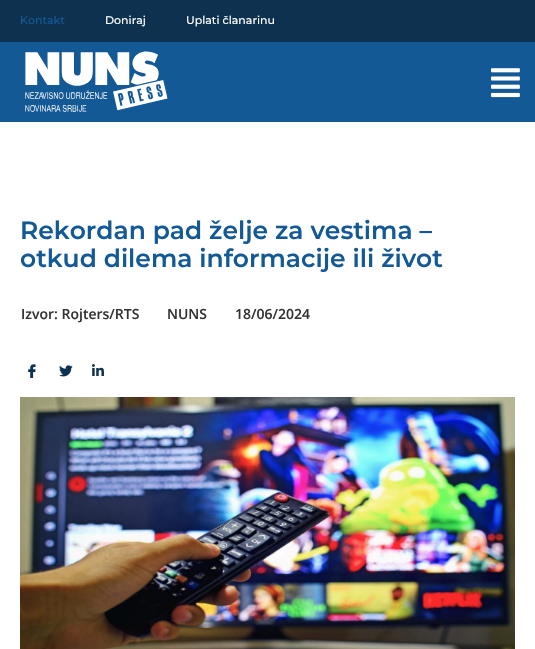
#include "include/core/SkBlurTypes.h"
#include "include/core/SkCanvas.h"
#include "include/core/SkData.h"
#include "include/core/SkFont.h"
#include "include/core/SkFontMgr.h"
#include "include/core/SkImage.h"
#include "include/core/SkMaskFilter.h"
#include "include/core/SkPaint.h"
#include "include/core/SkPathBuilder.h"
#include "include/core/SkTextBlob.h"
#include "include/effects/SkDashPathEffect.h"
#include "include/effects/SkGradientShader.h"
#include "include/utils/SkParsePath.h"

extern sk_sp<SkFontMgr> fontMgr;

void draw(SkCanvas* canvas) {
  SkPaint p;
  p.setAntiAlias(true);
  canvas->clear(SK_ColorWHITE);
  p.setColor(SkColorSetRGB(14, 49, 79));
  canvas->drawRect(SkRect::MakeLTRB(0, 0, 535, 42), p);
  p.setColor(SkColorSetRGB(19, 89, 150));
  canvas->drawRect(SkRect::MakeLTRB(0, 42, 535, 122), p);
  canvas->drawImageRect(SkImages::DeferredFromEncodedData(SkData::MakeFromFileName("images/1.png")), SkRect::MakeLTRB(25, 51, 169, 112), SkSamplingOptions());
  canvas->drawImageRect(SkImages::DeferredFromEncodedData(SkData::MakeFromFileName("images/2.png")), SkRect::MakeLTRB(491, 68, 520, 98), SkSamplingOptions());
  canvas->drawImageRect(SkImages::DeferredFromEncodedData(SkData::MakeFromFileName("images/3.png")), SkRect::MakeLTRB(28, 364, 36, 378), SkSamplingOptions());
  canvas->drawImageRect(SkImages::DeferredFromEncodedData(SkData::MakeFromFileName("images/4.png")), SkRect::MakeLTRB(59, 365, 73, 377), SkSamplingOptions());
  canvas->drawImageRect(SkImages::DeferredFromEncodedData(SkData::MakeFromFileName("images/5.png")), SkRect::MakeLTRB(92, 364, 104, 376), SkSamplingOptions());
  canvas->drawImageRect(SkImages::DeferredFromEncodedData(SkData::MakeFromFileName("images/6.png")), SkRect::MakeLTRB(20, 397, 515, 649), SkSamplingOptions());
  SkFont font1(fontMgr->matchFamilyStyle("Montserrat", SkFontStyle(500, SkFontStyle::kNormal_Width, SkFontStyle::kUpright_Slant)), 11);
  font1.setSubpixel(true);
  canvas->drawString("Kontakt", 20, 24, font1, p);
  p.setColor(SK_ColorWHITE);
  canvas->drawString("Doniraj", 105, 24, font1, p);
  canvas->drawString("Uplati članarinu", 186, 24, font1, p);
  SkFont font2(fontMgr->matchFamilyStyle("Montserrat", SkFontStyle(600, SkFontStyle::kNormal_Width, SkFontStyle::kUpright_Slant)), 25);
  font2.setSubpixel(true);
  p.setColor(SkColorSetRGB(19, 89, 150));
  canvas->drawString("Rekordan pad želje za vestima –", 20, 239, font2, p);
  canvas->drawString("otkud dilema informacije ili život", 20, 267, font2, p);
  SkFont font3(fontMgr->matchFamilyStyle("Open Sans", SkFontStyle(600, SkFontStyle::kNormal_Width, SkFontStyle::kUpright_Slant)), 14);
  font3.setSubpixel(true);
  p.setColor(SkColorSetRGB(51, 51, 51));
  canvas->drawString("Izvor: Rojters/RTS", 21, 319, font3, p);
  canvas->drawString("NUNS", 167, 319, font3, p);
  canvas->drawString("18/06/2024", 235, 319, font3, p);
}
